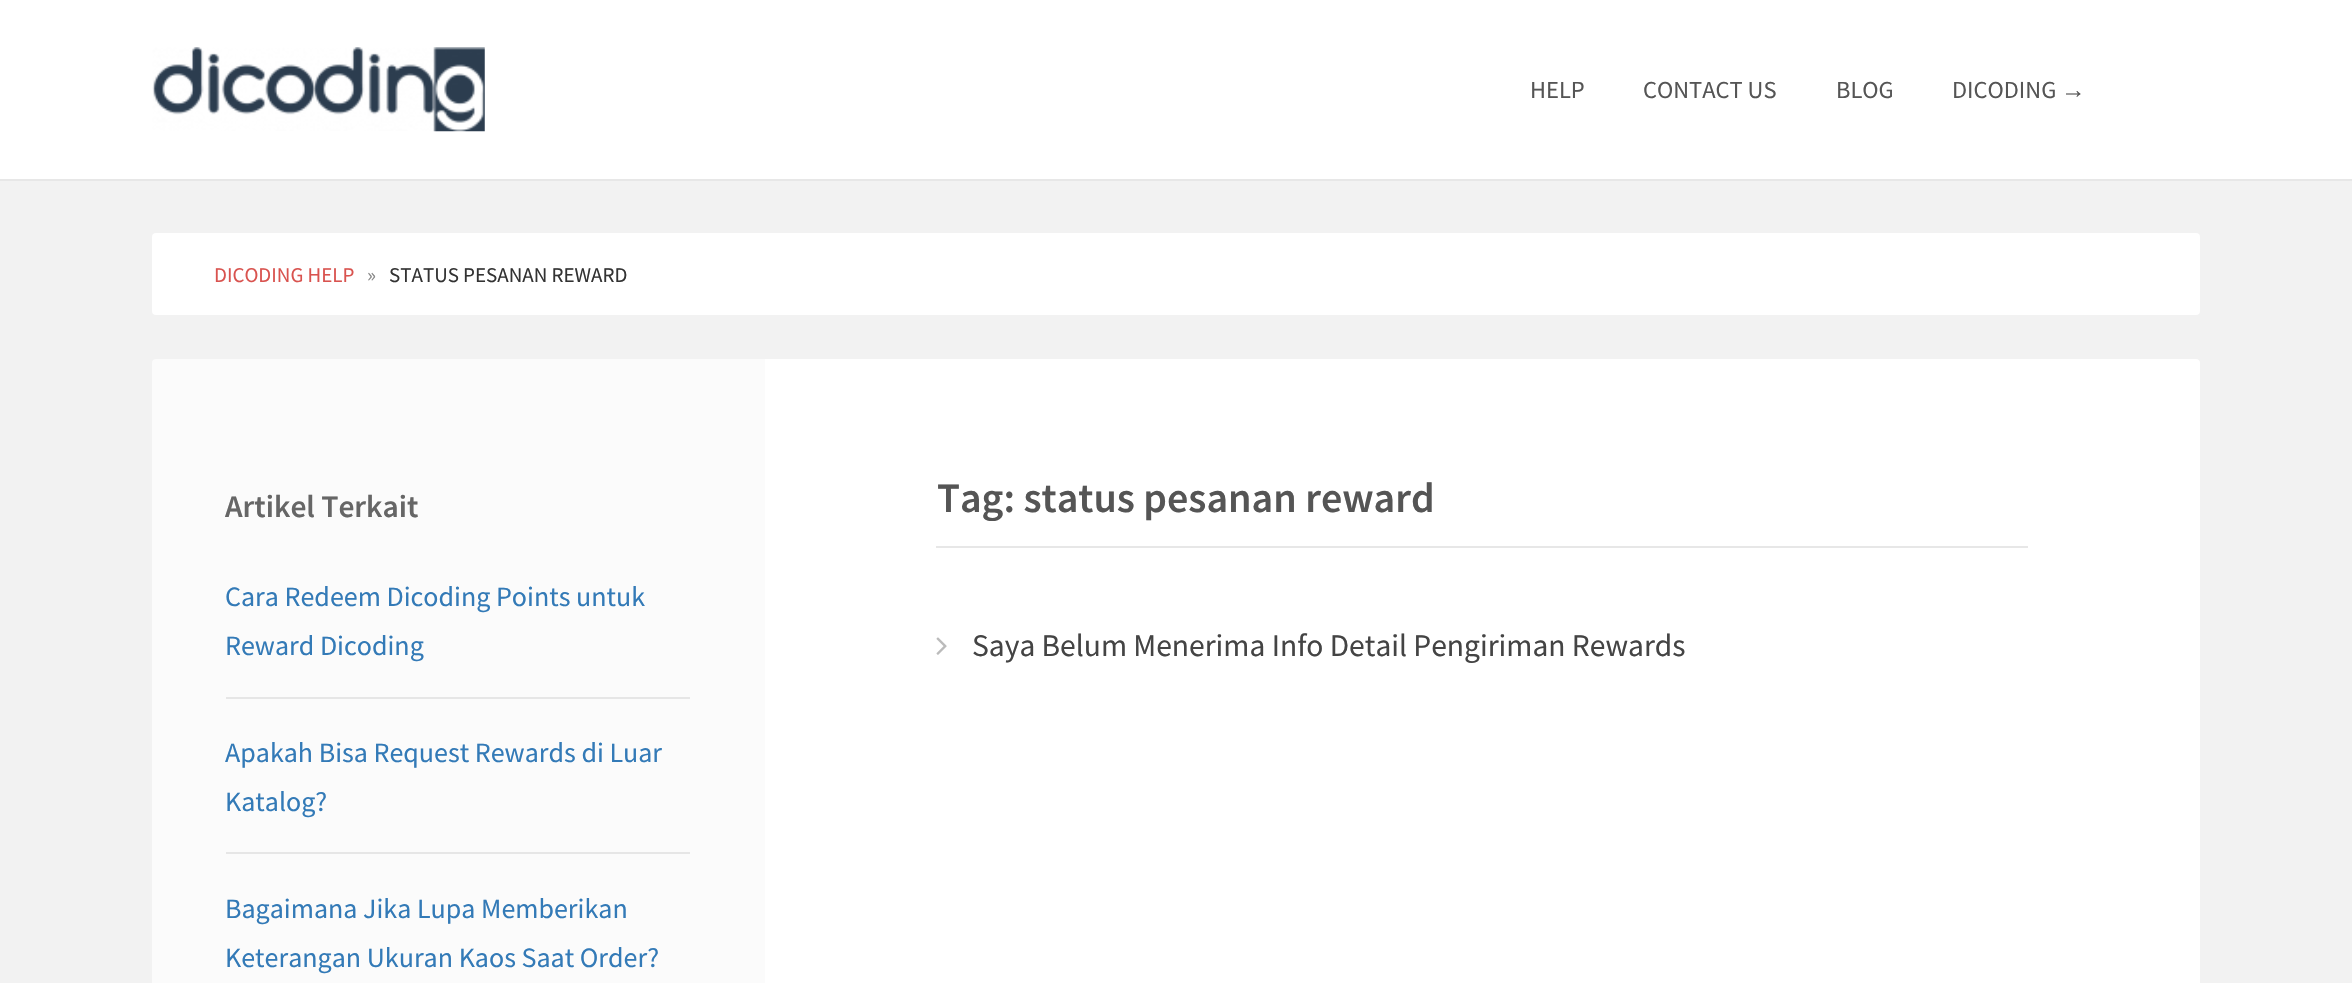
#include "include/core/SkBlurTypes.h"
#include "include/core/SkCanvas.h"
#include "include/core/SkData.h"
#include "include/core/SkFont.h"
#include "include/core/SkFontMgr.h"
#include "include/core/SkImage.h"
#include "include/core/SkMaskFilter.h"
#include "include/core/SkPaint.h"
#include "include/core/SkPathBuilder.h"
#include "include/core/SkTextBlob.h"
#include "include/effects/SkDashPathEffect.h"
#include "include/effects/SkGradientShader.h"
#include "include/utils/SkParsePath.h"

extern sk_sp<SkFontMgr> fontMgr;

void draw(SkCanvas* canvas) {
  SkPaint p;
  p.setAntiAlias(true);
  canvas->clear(SkColorSetRGB(242, 242, 242));
  p.setColor(SK_ColorWHITE);
  canvas->drawRect(SkRect::MakeLTRB(0, 0, 2352, 179), p);
  p.setColor(SkColorSetRGB(231, 231, 231));
  canvas->drawRect(SkRect::MakeLTRB(0, 179, 2352, 181), p);
  canvas->drawImageRect(SkImages::DeferredFromEncodedData(SkData::MakeFromFileName("images/1.png")), SkRect::MakeLTRB(152, 47, 485, 132), SkSamplingOptions());
  p.setColor(SK_ColorWHITE);
  canvas->drawRoundRect(SkRect::MakeLTRB(152, 233, 2200, 315), 4, 4, p);
  p.setColor(SkColorSetRGB(251, 251, 251));
  canvas->drawRoundRect(SkRect::MakeLTRB(152, 359, 2200, 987), 4, 4, p);
  p.setColor(SkColorSetRGB(230, 230, 230));
  canvas->drawRect(SkRect::MakeLTRB(226, 697, 690, 699), p);
  canvas->drawRect(SkRect::MakeLTRB(226, 852, 690, 854), p);
  p.setColor(SK_ColorWHITE);
  canvas->drawPath(SkPathBuilder().moveTo(765, 359).lineTo(2196, 359).cubicTo(2198, 359, 2200, 361, 2200, 363).lineTo(2200, 983).cubicTo(2200, 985, 2198, 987, 2196, 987).lineTo(765, 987).close().detach(), p);
  p.setColor(SkColorSetRGB(231, 231, 231));
  canvas->drawRect(SkRect::MakeLTRB(936, 546, 2028, 548), p);
  canvas->drawImageRect(SkImages::DeferredFromEncodedData(SkData::MakeFromFileName("images/2.png")), SkRect::MakeLTRB(936, 637, 947, 655), SkSamplingOptions());
  SkFont font1(fontMgr->matchFamilyStyle("Source Sans Pro", SkFontStyle::Normal()), 24.5f);
  font1.setSubpixel(true);
  p.setColor(SkColorSetRGB(85, 85, 85));
  canvas->drawString("HELP", 1530, 98, font1, p);
  canvas->drawString("CONTACT US", 1643, 98, font1, p);
  canvas->drawString("BLOG", 1836, 98, font1, p);
  canvas->drawString("DICODING", 1952, 98, font1, p);
  SkFont font2(fontMgr->matchFamilyStyle("Liberation Sans", SkFontStyle::Normal()), 24.5f);
  font2.setSubpixel(true);
  canvas->drawString("→", 2061, 98, font2, p);
  SkFont font3(fontMgr->matchFamilyStyle("Source Sans Pro", SkFontStyle::Normal()), 21);
  font3.setSubpixel(true);
  p.setColor(SkColorSetRGB(217, 83, 79));
  canvas->drawString("DICODING HELP", 214, 282, font3, p);
  p.setColor(SkColorSetRGB(136, 136, 136));
  canvas->drawString("»", 367, 282, font3, p);
  p.setColor(SkColorSetRGB(51, 51, 51));
  canvas->drawString("STATUS PESANAN REWARD", 389, 282, font3, p);
  SkFont font4(fontMgr->matchFamilyStyle("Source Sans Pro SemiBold", SkFontStyle(600, SkFontStyle::kNormal_Width, SkFontStyle::kUpright_Slant)), 31.5f);
  font4.setSubpixel(true);
  p.setColor(SkColorSetRGB(102, 102, 102));
  canvas->drawString("Artikel Terkait", 225, 517, font4, p);
  SkFont font5(fontMgr->matchFamilyStyle("Source Sans Pro", SkFontStyle::Normal()), 28);
  font5.setSubpixel(true);
  p.setColor(SkColorSetRGB(51, 122, 183));
  canvas->drawString("Cara Redeem Dicoding Points untuk", 225, 606, font5, p);
  canvas->drawString("Reward Dicoding", 225, 655, font5, p);
  canvas->drawString("Apakah Bisa Request Rewards di Luar", 225, 762, font5, p);
  canvas->drawString("Katalog?", 225, 811, font5, p);
  canvas->drawString("Bagaimana Jika Lupa Memberikan", 225, 918, font5, p);
  canvas->drawString("Keterangan Ukuran Kaos Saat Order?", 225, 967, font5, p);
  SkFont font6(fontMgr->matchFamilyStyle("Source Sans Pro SemiBold", SkFontStyle(600, SkFontStyle::kNormal_Width, SkFontStyle::kUpright_Slant)), 42);
  font6.setSubpixel(true);
  p.setColor(SkColorSetRGB(85, 85, 85));
  canvas->drawString("Tag: status pesanan reward", 937, 512, font6, p);
  SkFont font7(fontMgr->matchFamilyStyle("Source Sans Pro", SkFontStyle::Normal()), 31.5f);
  font7.setSubpixel(true);
  p.setColor(SkColorSetRGB(68, 68, 68));
  canvas->drawString("Saya Belum Menerima Info Detail Pengiriman Rewards", 972, 656, font7, p);
}
